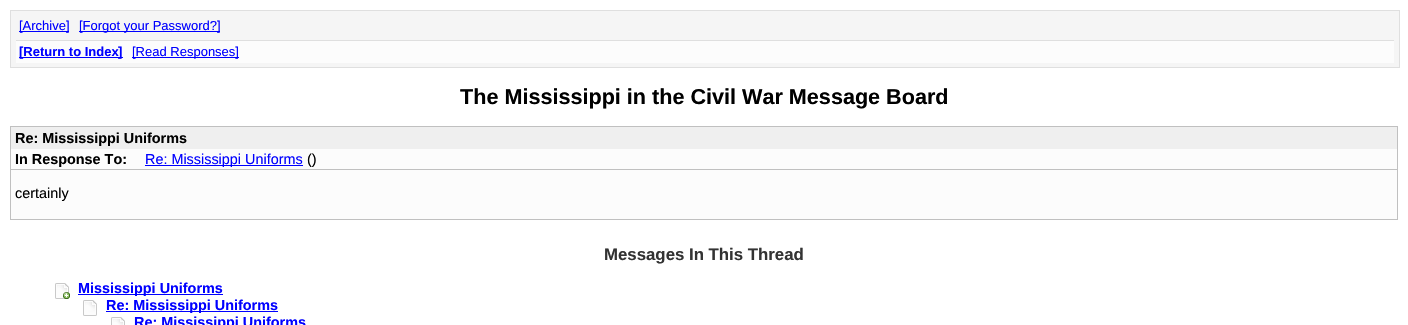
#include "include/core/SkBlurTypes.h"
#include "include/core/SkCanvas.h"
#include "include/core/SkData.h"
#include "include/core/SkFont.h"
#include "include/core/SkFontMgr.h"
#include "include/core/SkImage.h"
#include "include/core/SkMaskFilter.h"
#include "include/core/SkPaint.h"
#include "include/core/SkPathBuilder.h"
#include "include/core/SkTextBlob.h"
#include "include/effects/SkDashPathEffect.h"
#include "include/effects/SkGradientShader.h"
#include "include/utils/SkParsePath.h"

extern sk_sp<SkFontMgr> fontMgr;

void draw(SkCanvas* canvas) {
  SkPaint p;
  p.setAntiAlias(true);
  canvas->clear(SK_ColorWHITE);
  p.setColor(SkColorSetRGB(245, 245, 245));
  canvas->drawRect(SkRect::MakeLTRB(10.5f, 10.5f, 1399.5f, 67.5f), p);
  p.setStyle(SkPaint::kStroke_Style);
  p.setStrokeWidth(1);
  p.setColor(SkColorSetRGB(223, 223, 223));
  canvas->drawRect(SkRect::MakeLTRB(10.5f, 10.5f, 1399.5f, 67.5f), p);
  p.setStyle(SkPaint::kFill_Style);
  p.setColor(SkColorSetRGB(0, 0, 255));
  canvas->drawRect(SkRect::MakeLTRB(19, 31, 69, 32), p);
  canvas->drawRect(SkRect::MakeLTRB(79, 31, 220, 32), p);
  p.setColor(SkColorSetRGB(252, 252, 252));
  canvas->drawRect(SkRect::MakeLTRB(16, 41, 1394, 63), p);
  p.setColor(SkColorSetRGB(223, 223, 223));
  canvas->drawRect(SkRect::MakeLTRB(16, 40, 1394, 41), p);
  p.setColor(SkColorSetRGB(0, 0, 255));
  canvas->drawRect(SkRect::MakeLTRB(19, 57, 23, 58), p);
  canvas->drawRect(SkRect::MakeLTRB(23, 57, 123, 58), p);
  canvas->drawRect(SkRect::MakeLTRB(132, 57, 239, 58), p);
  p.setColor(SkColorSetRGB(252, 252, 252));
  canvas->drawRect(SkRect::MakeLTRB(11, 149, 1397, 219), p);
  p.setStyle(SkPaint::kStroke_Style);
  p.setColor(SkColorSetRGB(192, 192, 192));
  canvas->drawRect(SkRect::MakeLTRB(10.5f, 126.5f, 1397.5f, 219.5f), p);
  p.setStyle(SkPaint::kFill_Style);
  p.setColor(SkColorSetRGB(239, 239, 239));
  canvas->drawRect(SkRect::MakeLTRB(11, 127, 1397, 149), p);
  p.setColor(SkColorSetRGB(0, 0, 255));
  canvas->drawRect(SkRect::MakeLTRB(145, 165, 303, 166), p);
  p.setColor(SkColorSetRGB(192, 192, 192));
  canvas->drawRect(SkRect::MakeLTRB(11, 169, 1397, 170), p);
  canvas->drawImageRect(SkImages::DeferredFromEncodedData(SkData::MakeFromFileName("images/1.png")), SkRect::MakeLTRB(55, 283, 70, 299), SkSamplingOptions());
  p.setColor(SkColorSetRGB(0, 0, 255));
  canvas->drawRect(SkRect::MakeLTRB(78, 294, 223, 295), p);
  canvas->drawImageRect(SkImages::DeferredFromEncodedData(SkData::MakeFromFileName("images/2.png")), SkRect::MakeLTRB(83, 300, 97, 316), SkSamplingOptions());
  canvas->drawRect(SkRect::MakeLTRB(106, 311, 278, 312), p);
  canvas->drawImageRect(SkImages::DeferredFromEncodedData(SkData::MakeFromFileName("images/3.png")), SkRect::MakeLTRB(111, 317, 125, 325), SkSamplingOptions());
  SkFont font1(fontMgr->matchFamilyStyle("Liberation Sans", SkFontStyle::Normal()), 13);
  font1.setSubpixel(true);
  canvas->drawString("[Archive]", 19, 30, font1, p);
  canvas->drawString("[Forgot your Password?]", 79, 30, font1, p);
  SkFont font2(fontMgr->matchFamilyStyle("Liberation Sans", SkFontStyle::Bold()), 13);
  font2.setSubpixel(true);
  canvas->drawString("[Return to Index", 19, 56, font2, p);
  canvas->drawString("]", 118, 56, font2, p);
  canvas->drawString("[Read Responses]", 132, 56, font1, p);
  SkFont font3(fontMgr->matchFamilyStyle("Liberation Sans", SkFontStyle::Bold()), 21.6f);
  font3.setSubpixel(true);
  p.setColor(SK_ColorBLACK);
  canvas->drawString("The Mississippi in the Civil War Message Board", 460, 104, font3, p);
  SkFont font4(fontMgr->matchFamilyStyle("Liberation Sans", SkFontStyle::Bold()), 14.4f);
  font4.setSubpixel(true);
  canvas->drawString("Re: Mississippi Uniforms", 15, 143, font4, p);
  canvas->drawString("In Response To:", 15, 164, font4, p);
  SkFont font5(fontMgr->matchFamilyStyle("Liberation Sans", SkFontStyle::Normal()), 14.4f);
  font5.setSubpixel(true);
  p.setColor(SkColorSetRGB(0, 0, 255));
  canvas->drawString("Re: Mississippi Uniforms", 145, 164, font5, p);
  p.setColor(SK_ColorBLACK);
  canvas->drawString("()", 307, 164, font5, p);
  canvas->drawString("certainly", 15, 198, font5, p);
  SkFont font6(fontMgr->matchFamilyStyle("Liberation Sans", SkFontStyle::Bold()), 16.8f);
  font6.setSubpixel(true);
  p.setColor(SkColorSetRGB(51, 51, 51));
  canvas->drawString("Messages In This Thread", 604, 260, font6, p);
  p.setColor(SkColorSetRGB(0, 0, 255));
  canvas->drawString("Mississippi Uniforms", 78, 293, font4, p);
  canvas->drawString("Re: Mississippi Uniforms", 106, 310, font4, p);
  canvas->drawString("Re: Mississippi Uniforms", 134, 327, font4, p);
}
